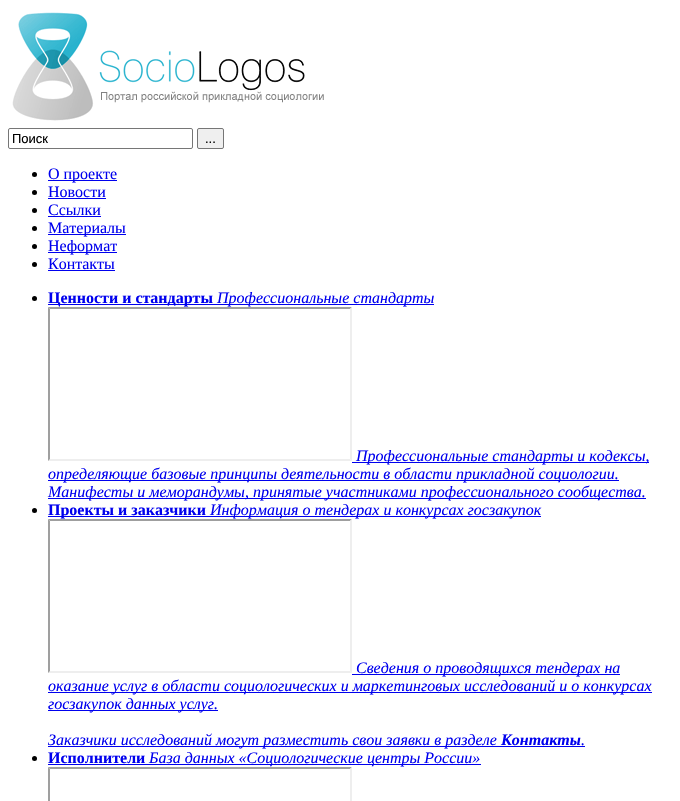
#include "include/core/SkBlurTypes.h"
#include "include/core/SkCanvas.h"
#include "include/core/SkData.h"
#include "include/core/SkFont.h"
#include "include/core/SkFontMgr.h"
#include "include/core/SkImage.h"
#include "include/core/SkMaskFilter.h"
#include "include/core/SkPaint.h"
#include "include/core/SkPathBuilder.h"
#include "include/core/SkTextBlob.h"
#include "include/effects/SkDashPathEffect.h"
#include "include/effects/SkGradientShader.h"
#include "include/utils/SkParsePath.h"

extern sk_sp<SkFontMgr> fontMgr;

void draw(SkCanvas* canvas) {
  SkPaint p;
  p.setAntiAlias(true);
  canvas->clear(SK_ColorWHITE);
  canvas->drawImageRect(SkImages::DeferredFromEncodedData(SkData::MakeFromFileName("images/1.png")), SkRect::MakeLTRB(12, 12, 324, 121), SkSamplingOptions());
  p.setStyle(SkPaint::kStroke_Style);
  p.setStrokeWidth(1);
  p.setColor(SkColorSetRGB(118, 118, 118));
  canvas->drawRoundRect(SkRect::MakeLTRB(8.5f, 128.5f, 192.5f, 148.5f), 1.5f, 1.5f, p);
  p.setStyle(SkPaint::kFill_Style);
  p.setColor(SkColorSetRGB(239, 239, 239));
  canvas->drawRoundRect(SkRect::MakeLTRB(197.5f, 128.5f, 223.5f, 148.5f), 1.5f, 1.5f, p);
  p.setStyle(SkPaint::kStroke_Style);
  p.setColor(SkColorSetRGB(118, 118, 118));
  canvas->drawRoundRect(SkRect::MakeLTRB(197.5f, 128.5f, 223.5f, 148.5f), 1.5f, 1.5f, p);
  p.setStyle(SkPaint::kFill_Style);
  p.setColor(SK_ColorBLACK);
  canvas->drawCircle(34.5f, 174.5f, 2.5f, p);
  p.setColor(SkColorSetRGB(0, 0, 238));
  canvas->drawRect(SkRect::MakeLTRB(48, 180, 117, 181), p);
  p.setColor(SK_ColorBLACK);
  canvas->drawCircle(34.5f, 192.5f, 2.5f, p);
  p.setColor(SkColorSetRGB(0, 0, 238));
  canvas->drawRect(SkRect::MakeLTRB(48, 198, 106, 199), p);
  p.setColor(SK_ColorBLACK);
  canvas->drawCircle(34.5f, 210.5f, 2.5f, p);
  p.setColor(SkColorSetRGB(0, 0, 238));
  canvas->drawRect(SkRect::MakeLTRB(48, 216, 101, 217), p);
  p.setColor(SK_ColorBLACK);
  canvas->drawCircle(34.5f, 228.5f, 2.5f, p);
  p.setColor(SkColorSetRGB(0, 0, 238));
  canvas->drawRect(SkRect::MakeLTRB(48, 234, 126, 235), p);
  p.setColor(SK_ColorBLACK);
  canvas->drawCircle(34.5f, 246.5f, 2.5f, p);
  p.setColor(SkColorSetRGB(0, 0, 238));
  canvas->drawRect(SkRect::MakeLTRB(48, 252, 117, 253), p);
  p.setColor(SK_ColorBLACK);
  canvas->drawCircle(34.5f, 264.5f, 2.5f, p);
  p.setColor(SkColorSetRGB(0, 0, 238));
  canvas->drawRect(SkRect::MakeLTRB(48, 270, 115, 271), p);
  p.setColor(SK_ColorBLACK);
  canvas->drawCircle(34.5f, 298.5f, 2.5f, p);
  p.setColor(SkColorSetRGB(0, 0, 238));
  canvas->drawRect(SkRect::MakeLTRB(48, 304, 434, 305), p);
  p.setColor(SkColorSetRGB(159, 159, 159));
  canvas->drawPath(SkPathBuilder().moveTo(48, 307).lineTo(352, 307).lineTo(350, 309).lineTo(50, 309).close().detach(), p);
  p.setColor(SkColorSetRGB(238, 238, 238));
  canvas->drawPath(SkPathBuilder().moveTo(352, 307).lineTo(352, 461).lineTo(350, 459).lineTo(350, 309).close().detach(), p);
  canvas->drawPath(SkPathBuilder().moveTo(352, 461).lineTo(48, 461).lineTo(50, 459).lineTo(350, 459).close().detach(), p);
  p.setColor(SkColorSetRGB(159, 159, 159));
  canvas->drawPath(SkPathBuilder().moveTo(48, 461).lineTo(48, 307).lineTo(50, 309).lineTo(50, 459).close().detach(), p);
  p.setColor(SkColorSetRGB(0, 0, 238));
  canvas->drawRect(SkRect::MakeLTRB(352, 462, 649, 463), p);
  canvas->drawRect(SkRect::MakeLTRB(48, 480, 619, 481), p);
  canvas->drawRect(SkRect::MakeLTRB(48, 498, 646, 499), p);
  p.setColor(SK_ColorBLACK);
  canvas->drawCircle(34.5f, 510.5f, 2.5f, p);
  p.setColor(SkColorSetRGB(0, 0, 238));
  canvas->drawRect(SkRect::MakeLTRB(48, 516, 541, 517), p);
  p.setColor(SkColorSetRGB(159, 159, 159));
  canvas->drawPath(SkPathBuilder().moveTo(48, 519).lineTo(352, 519).lineTo(350, 521).lineTo(50, 521).close().detach(), p);
  p.setColor(SkColorSetRGB(238, 238, 238));
  canvas->drawPath(SkPathBuilder().moveTo(352, 519).lineTo(352, 673).lineTo(350, 671).lineTo(350, 521).close().detach(), p);
  canvas->drawPath(SkPathBuilder().moveTo(352, 673).lineTo(48, 673).lineTo(50, 671).lineTo(350, 671).close().detach(), p);
  p.setColor(SkColorSetRGB(159, 159, 159));
  canvas->drawPath(SkPathBuilder().moveTo(48, 673).lineTo(48, 519).lineTo(50, 521).lineTo(50, 671).close().detach(), p);
  p.setColor(SkColorSetRGB(0, 0, 238));
  canvas->drawRect(SkRect::MakeLTRB(352, 674, 620, 675), p);
  canvas->drawRect(SkRect::MakeLTRB(48, 692, 652, 693), p);
  canvas->drawRect(SkRect::MakeLTRB(48, 710, 218, 711), p);
  canvas->drawRect(SkRect::MakeLTRB(48, 746, 585, 747), p);
  p.setColor(SK_ColorBLACK);
  canvas->drawCircle(34.5f, 758.5f, 2.5f, p);
  p.setColor(SkColorSetRGB(159, 159, 159));
  canvas->drawPath(SkPathBuilder().moveTo(48, 767).lineTo(352, 767).lineTo(350, 769).lineTo(50, 769).close().detach(), p);
  canvas->drawPath(SkPathBuilder().moveTo(48, 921).lineTo(48, 767).lineTo(50, 769).lineTo(50, 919).close().detach(), p);
  p.setColor(SkColorSetRGB(0, 0, 238));
  canvas->drawRect(SkRect::MakeLTRB(48, 764, 481, 765), p);
  p.setColor(SkColorSetRGB(238, 238, 238));
  canvas->drawPath(SkPathBuilder().moveTo(352, 767).lineTo(352, 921).lineTo(350, 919).lineTo(350, 769).close().detach(), p);
  SkFont font1(fontMgr->matchFamilyStyle("Liberation Sans", SkFontStyle::Normal()), 13);
  font1.setSubpixel(true);
  p.setColor(SK_ColorBLACK);
  canvas->drawString("Поиск", 12, 143, font1, p);
  canvas->drawString("...", 205, 143, font1, p);
  SkFont font2(fontMgr->matchFamilyStyle("Liberation Serif", SkFontStyle::Normal()), 16);
  font2.setSubpixel(true);
  p.setColor(SkColorSetRGB(0, 0, 238));
  canvas->drawString("О проекте", 48, 179, font2, p);
  canvas->drawString("Новости", 48, 197, font2, p);
  canvas->drawString("Ссылки", 48, 215, font2, p);
  canvas->drawString("Материалы", 48, 233, font2, p);
  canvas->drawString("Неформат", 48, 251, font2, p);
  canvas->drawString("Контакты", 48, 269, font2, p);
  SkFont font3(fontMgr->matchFamilyStyle("Liberation Serif", SkFontStyle::Bold()), 16);
  font3.setSubpixel(true);
  canvas->drawString("Ценности и стандарты", 48, 303, font3, p);
  SkFont font4(fontMgr->matchFamilyStyle("Liberation Serif", SkFontStyle::Italic()), 16);
  font4.setSubpixel(true);
  canvas->drawString("Профессиональные стандарты", 217, 303, font4, p);
  canvas->drawString("Профессиональные стандарты и кодексы,", 356, 461, font4, p);
  canvas->drawString("определяющие базовые принципы деятельности в области прикладной социологии.", 48, 479, font4, p);
  canvas->drawString("Манифесты и меморандумы, принятые участниками профессионального сообщества.", 48, 497, font4, p);
  canvas->drawString("Проекты и заказчики", 48, 515, font3, p);
  canvas->drawString("Информация о тендерах и конкурсах госзакупок", 210, 515, font4, p);
  canvas->drawString("Сведения о проводящихся тендерах на", 356, 673, font4, p);
  canvas->drawString("оказание услуг в области социологических и маркетинговых исследований и о конкурсах", 48, 691, font4, p);
  canvas->drawString("госзакупок данных услуг.", 48, 709, font4, p);
  canvas->drawString("Заказчики исследований могут разместить свои заявки в разделе", 48, 745, font4, p);
  SkFont font5(fontMgr->matchFamilyStyle("Liberation Serif", SkFontStyle::BoldItalic()), 16);
  font5.setSubpixel(true);
  canvas->drawString("Контакты", 501, 745, font5, p);
  canvas->drawString(".", 581, 745, font4, p);
  canvas->drawString("Исполнители", 48, 763, font3, p);
  canvas->drawString("База данных «Социологические центры России»", 149, 763, font4, p);
}
